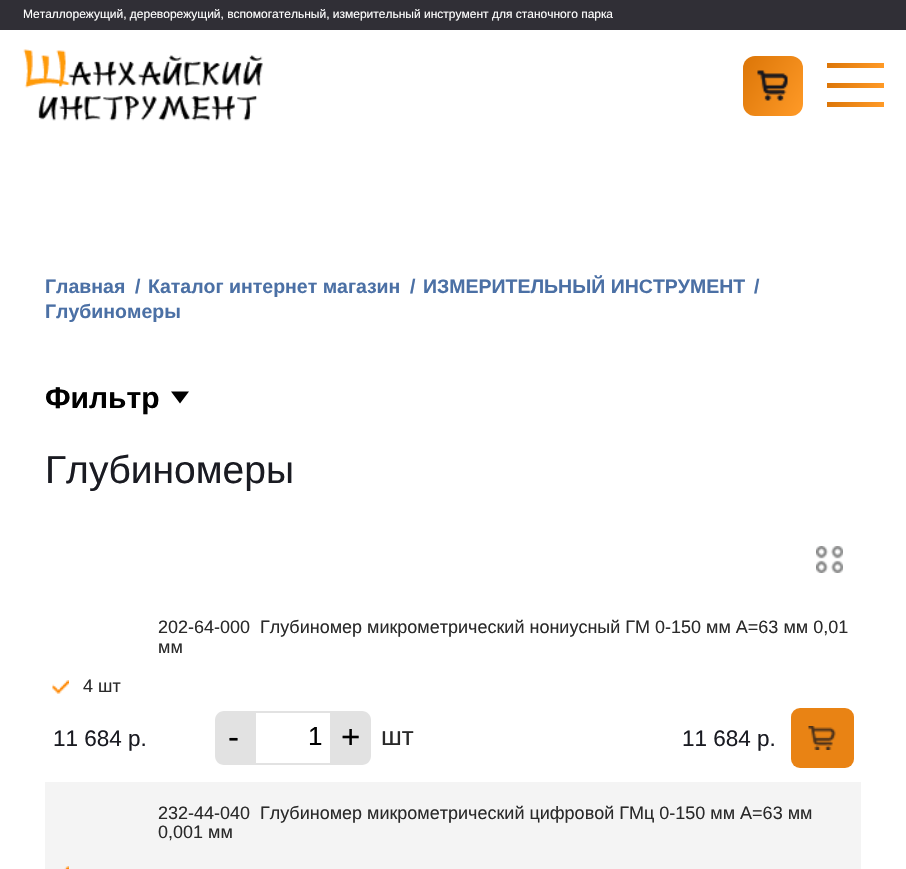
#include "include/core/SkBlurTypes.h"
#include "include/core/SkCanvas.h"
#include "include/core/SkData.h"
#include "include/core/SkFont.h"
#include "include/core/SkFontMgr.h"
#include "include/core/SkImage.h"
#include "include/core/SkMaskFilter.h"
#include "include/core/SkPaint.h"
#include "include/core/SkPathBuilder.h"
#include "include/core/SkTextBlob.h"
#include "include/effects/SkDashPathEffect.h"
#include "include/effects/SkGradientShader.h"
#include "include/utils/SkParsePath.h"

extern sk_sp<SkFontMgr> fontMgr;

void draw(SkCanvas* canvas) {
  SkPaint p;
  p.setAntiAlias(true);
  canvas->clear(SK_ColorWHITE);
  p.setColor(SkColorSetRGB(48, 47, 54));
  canvas->drawRect(SkRect::MakeLTRB(0, 0, 906, 30), p);
  canvas->drawImageRect(SkImages::DeferredFromEncodedData(SkData::MakeFromFileName("images/1.png")), SkRect::MakeLTRB(23, 49, 263, 121), SkSamplingOptions());
  {
    const SkColor colors[] = {SkColorSetRGB(255, 154, 39), SkColorSetRGB(219, 117, 7)};
    const float stops[] = {0, 1};
    const SkPoint ends[] = {{808, 107}, {737, 64}};
    p.setShader(SkGradientShader::MakeLinear(ends, colors, stops, 2, SkTileMode::kClamp));
    p.setAlpha(255);
  }
  canvas->drawRoundRect(SkRect::MakeLTRB(743, 56, 803, 116), 12, 12, p);
  canvas->drawImageRect(SkImages::DeferredFromEncodedData(SkData::MakeFromFileName("images/2.png")), SkRect::MakeLTRB(757, 70, 788, 101), SkSamplingOptions());
  {
    const SkColor colors[] = {SkColorSetRGB(255, 154, 39), SkColorSetRGB(219, 117, 7)};
    const float stops[] = {0, 1};
    const SkPoint ends[] = {{877, 78}, {833, 52}};
    p.setShader(SkGradientShader::MakeLinear(ends, colors, stops, 2, SkTileMode::kClamp));
    p.setAlpha(255);
  }
  canvas->drawRect(SkRect::MakeLTRB(827, 63, 884, 68), p);
  {
    const SkColor colors[] = {SkColorSetRGB(255, 154, 39), SkColorSetRGB(219, 117, 7)};
    const float stops[] = {0, 1};
    const SkPoint ends[] = {{877, 98}, {833, 72}};
    p.setShader(SkGradientShader::MakeLinear(ends, colors, stops, 2, SkTileMode::kClamp));
    p.setAlpha(255);
  }
  canvas->drawRect(SkRect::MakeLTRB(827, 83, 884, 88), p);
  {
    const SkColor colors[] = {SkColorSetRGB(255, 154, 39), SkColorSetRGB(219, 117, 7)};
    const float stops[] = {0, 1};
    const SkPoint ends[] = {{877, 117}, {833, 91}};
    p.setShader(SkGradientShader::MakeLinear(ends, colors, stops, 2, SkTileMode::kClamp));
    p.setAlpha(255);
  }
  canvas->drawRect(SkRect::MakeLTRB(827, 102, 884, 107), p);
  p.setShader(nullptr);
  p.setColor(SK_ColorBLACK);
  canvas->drawPath(SkPathBuilder().moveTo(171, 391.5f).lineTo(189, 391.5f).lineTo(180, 403.5f).close().detach(), p);
  canvas->drawImageRect(SkImages::DeferredFromEncodedData(SkData::MakeFromFileName("images/3.png")), SkRect::MakeLTRB(816, 546, 843, 573), SkSamplingOptions());
  canvas->drawImageRect(SkImages::DeferredFromEncodedData(SkData::MakeFromFileName("images/4.png")), SkRect::MakeLTRB(52, 680, 69, 694), SkSamplingOptions());
  p.setColor(SkColorSetRGB(226, 226, 226));
  canvas->drawPath(SkPathBuilder().moveTo(224, 711).lineTo(254, 711).lineTo(254, 765).lineTo(224, 765).cubicTo(219, 765, 215, 761, 215, 756).lineTo(215, 720).cubicTo(215, 715, 219, 711, 224, 711).close().detach(), p);
  p.setStyle(SkPaint::kStroke_Style);
  p.setStrokeWidth(2);
  canvas->drawRect(SkRect::MakeLTRB(255, 712, 331, 764), p);
  p.setStyle(SkPaint::kFill_Style);
  canvas->drawPath(SkPathBuilder().moveTo(332, 711).lineTo(362, 711).cubicTo(367, 711, 371, 715, 371, 720).lineTo(371, 756).cubicTo(371, 761, 367, 765, 362, 765).lineTo(332, 765).close().detach(), p);
  p.setColor(SkColorSetRGB(233, 131, 20));
  canvas->drawRoundRect(SkRect::MakeLTRB(791, 708, 854, 768), 9, 9, p);
  canvas->drawImageRect(SkImages::DeferredFromEncodedData(SkData::MakeFromFileName("images/5.png")), SkRect::MakeLTRB(808, 726, 836, 750), SkSamplingOptions());
  p.setColor(SkColorSetRGB(244, 244, 244));
  canvas->drawRect(SkRect::MakeLTRB(45, 782, 861, 869), p);
  canvas->drawImageRect(SkImages::DeferredFromEncodedData(SkData::MakeFromFileName("images/6.png")), SkRect::MakeLTRB(64, 866, 69, 869), SkSamplingOptions());
  SkFont font1(fontMgr->matchFamilyStyle("Liberation Sans", SkFontStyle::Normal()), 12);
  font1.setSubpixel(true);
  p.setColor(SK_ColorWHITE);
  canvas->drawString("Металлорежущий, дереворежущий, вспомогательный, измерительный инструмент для станочного парка", 23, 18, font1, p);
  SkFont font2(fontMgr->matchFamilyStyle("Liberation Sans", SkFontStyle::Bold()), 19.5f);
  font2.setSubpixel(true);
  p.setColor(SkColorSetRGB(75, 112, 165));
  canvas->drawString("Главная", 45, 293, font2, p);
  canvas->drawString("/", 135, 293, font2, p);
  canvas->drawString("Каталог интернет магазин", 148, 293, font2, p);
  canvas->drawString("/", 410, 293, font2, p);
  canvas->drawString("ИЗМЕРИТЕЛЬНЫЙ ИНСТРУМЕНТ", 423, 293, font2, p);
  canvas->drawString("/", 754, 293, font2, p);
  canvas->drawString("Глубиномеры", 45, 318, font2, p);
  SkFont font3(fontMgr->matchFamilyStyle("Liberation Sans", SkFontStyle::Bold()), 30);
  font3.setSubpixel(true);
  p.setColor(SK_ColorBLACK);
  canvas->drawString("Фильтр", 45, 408, font3, p);
  SkFont font4(fontMgr->matchFamilyStyle("Liberation Sans", SkFontStyle::Normal()), 39);
  font4.setSubpixel(true);
  p.setColor(SkColorSetRGB(26, 27, 34));
  canvas->drawString("Глубиномеры", 45, 483, font4, p);
  SkFont font5(fontMgr->matchFamilyStyle("Liberation Sans", SkFontStyle::Normal()), 18);
  font5.setSubpixel(true);
  p.setColor(SkColorSetRGB(42, 42, 42));
  canvas->drawString("202-64-000  Глубиномер микрометрический нониусный ГМ 0-150 мм А=63 мм 0,01", 158, 633, font5, p);
  canvas->drawString("мм", 158, 653, font5, p);
  canvas->drawString("4 шт", 83, 692, font5, p);
  SkFont font6(fontMgr->matchFamilyStyle("Liberation Sans", SkFontStyle::Normal()), 22.5f);
  font6.setSubpixel(true);
  p.setColor(SkColorSetRGB(26, 27, 34));
  canvas->drawString("11 684 р.", 53, 746, font6, p);
  SkFont font7(fontMgr->matchFamilyStyle("Liberation Sans", SkFontStyle::Normal()), 33);
  font7.setSubpixel(true);
  p.setColor(SK_ColorBLACK);
  canvas->drawString("-", 228, 748, font7, p);
  SkFont font8(fontMgr->matchFamilyStyle("Liberation Sans", SkFontStyle::Normal()), 26);
  font8.setSubpixel(true);
  canvas->drawString("1", 308, 745, font8, p);
  canvas->drawString("+", 341, 748, font7, p);
  p.setColor(SkColorSetRGB(42, 42, 42));
  canvas->drawString("шт", 381, 745, font8, p);
  p.setColor(SkColorSetRGB(26, 27, 34));
  canvas->drawString("11 684 р.", 682, 746, font6, p);
  p.setColor(SkColorSetRGB(42, 42, 42));
  canvas->drawString("232-44-040  Глубиномер микрометрический цифровой ГМц 0-150 мм А=63 мм", 158, 819, font5, p);
  canvas->drawString("0,001 мм", 158, 838, font5, p);
}
